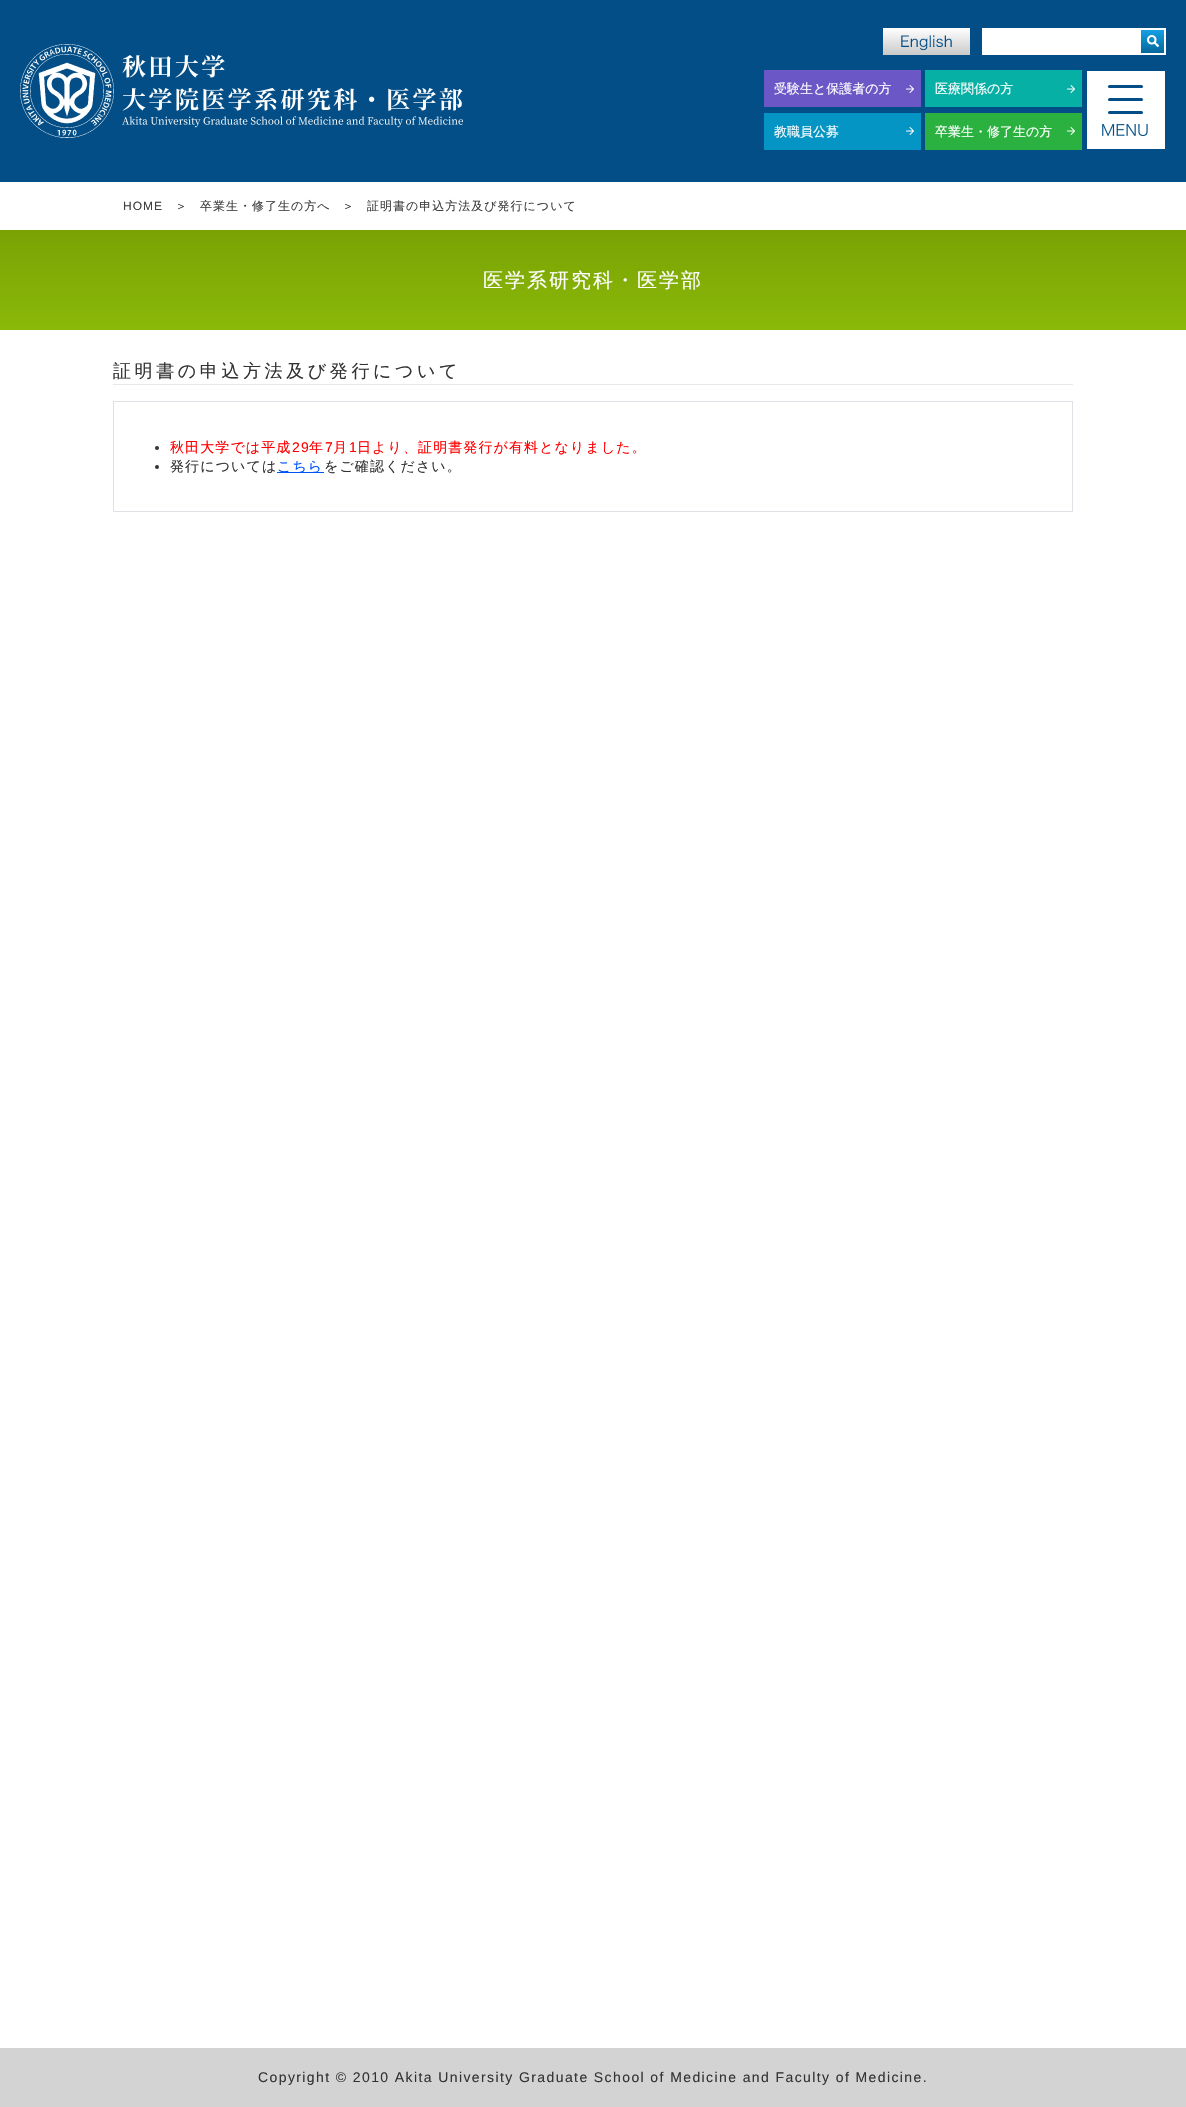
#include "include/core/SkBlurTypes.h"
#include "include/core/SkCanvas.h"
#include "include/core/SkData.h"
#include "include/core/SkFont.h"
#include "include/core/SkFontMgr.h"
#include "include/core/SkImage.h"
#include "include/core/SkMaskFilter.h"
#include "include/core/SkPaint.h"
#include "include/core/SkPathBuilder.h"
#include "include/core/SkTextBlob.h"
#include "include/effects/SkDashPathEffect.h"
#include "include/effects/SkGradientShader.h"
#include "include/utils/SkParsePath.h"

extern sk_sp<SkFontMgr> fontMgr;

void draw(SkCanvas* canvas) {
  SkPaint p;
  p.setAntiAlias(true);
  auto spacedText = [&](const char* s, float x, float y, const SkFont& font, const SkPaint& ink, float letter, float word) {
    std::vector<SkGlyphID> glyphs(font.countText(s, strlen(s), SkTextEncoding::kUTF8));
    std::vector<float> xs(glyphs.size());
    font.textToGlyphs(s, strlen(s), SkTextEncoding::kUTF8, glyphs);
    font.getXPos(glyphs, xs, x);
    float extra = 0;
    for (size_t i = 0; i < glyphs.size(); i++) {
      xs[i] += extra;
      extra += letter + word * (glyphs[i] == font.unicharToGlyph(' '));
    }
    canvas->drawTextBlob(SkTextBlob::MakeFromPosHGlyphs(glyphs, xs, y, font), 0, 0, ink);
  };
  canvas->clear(SK_ColorWHITE);
  p.setColor(SkColorSetRGB(3, 78, 134));
  canvas->drawRect(SkRect::MakeLTRB(0, 0, 1186, 182), p);
  canvas->drawImageRect(SkImages::DeferredFromEncodedData(SkData::MakeFromFileName("images/1.png")), SkRect::MakeLTRB(20, 44, 463, 138), SkSamplingOptions());
  canvas->drawImageRect(SkImages::DeferredFromEncodedData(SkData::MakeFromFileName("images/2.png")), SkRect::MakeLTRB(883, 28, 970, 55), SkSamplingOptions());
  p.setColor(SK_ColorWHITE);
  canvas->drawRect(SkRect::MakeLTRB(982, 28, 1166, 55), p);
  canvas->drawImageRect(SkImages::DeferredFromEncodedData(SkData::MakeFromFileName("images/3.png")), SkRect::MakeLTRB(1141, 30, 1164, 53), SkSamplingOptions());
  p.setColor(SkColorSetRGB(108, 87, 198));
  canvas->drawRect(SkRect::MakeLTRB(764, 70, 921, 107), p);
  canvas->drawImageRect(SkImages::DeferredFromEncodedData(SkData::MakeFromFileName("images/4.png")), SkRect::MakeLTRB(906, 85, 914, 93), SkSamplingOptions());
  p.setColor(SkColorSetRGB(7, 176, 165));
  canvas->drawRect(SkRect::MakeLTRB(925, 70, 1082, 107), p);
  canvas->drawImageRect(SkImages::DeferredFromEncodedData(SkData::MakeFromFileName("images/5.png")), SkRect::MakeLTRB(1067, 85, 1075, 93), SkSamplingOptions());
  p.setColor(SkColorSetRGB(5, 149, 196));
  canvas->drawRect(SkRect::MakeLTRB(764, 113, 921, 150), p);
  canvas->drawImageRect(SkImages::DeferredFromEncodedData(SkData::MakeFromFileName("images/6.png")), SkRect::MakeLTRB(906, 127, 914, 135), SkSamplingOptions());
  p.setColor(SkColorSetRGB(42, 177, 64));
  canvas->drawRect(SkRect::MakeLTRB(925, 113, 1082, 150), p);
  canvas->drawImageRect(SkImages::DeferredFromEncodedData(SkData::MakeFromFileName("images/7.png")), SkRect::MakeLTRB(1067, 127, 1075, 135), SkSamplingOptions());
  p.setColor(SK_ColorWHITE);
  canvas->drawRect(SkRect::MakeLTRB(1087, 71, 1165, 149), p);
  p.setColor(SkColorSetRGB(3, 78, 134));
  canvas->drawRoundRect(SkRect::MakeLTRB(1108, 85, 1143, 88), 1.5f, 1.5f, p);
  canvas->drawRoundRect(SkRect::MakeLTRB(1108, 98, 1143, 101), 1.5f, 1.5f, p);
  canvas->drawRoundRect(SkRect::MakeLTRB(1108, 111, 1143, 114), 1.5f, 1.5f, p);
  canvas->drawImageRect(SkImages::DeferredFromEncodedData(SkData::MakeFromFileName("images/8.png")), SkRect::MakeLTRB(1102, 124, 1148, 136), SkSamplingOptions());
  {
    const SkColor colors[] = {SkColorSetRGB(121, 162, 3), SkColorSetRGB(139, 185, 9)};
    const float stops[] = {0, 1};
    const SkPoint ends[] = {{593, 230}, {593, 330}};
    p.setShader(SkGradientShader::MakeLinear(ends, colors, stops, 2, SkTileMode::kClamp));
    p.setAlpha(255);
  }
  canvas->drawRect(SkRect::MakeLTRB(0, 230, 1186, 330), p);
  p.setShader(nullptr);
  p.setColor(SkColorSetRGB(232, 232, 232));
  canvas->drawRect(SkRect::MakeLTRB(113, 384, 1073, 385), p);
  p.setStyle(SkPaint::kStroke_Style);
  p.setStrokeWidth(1);
  p.setColor(SkColorSetRGB(222, 226, 230));
  canvas->drawRect(SkRect::MakeLTRB(113.5f, 401.5f, 1072.5f, 511.5f), p);
  p.setStyle(SkPaint::kFill_Style);
  p.setColor(SkColorSetRGB(51, 51, 51));
  canvas->drawCircle(157, 448, 2, p);
  canvas->drawCircle(157, 467, 2, p);
  p.setColor(SkColorSetRGB(0, 85, 245));
  canvas->drawRect(SkRect::MakeLTRB(277, 472, 324, 473), p);
  p.setColor(SkColorSetRGB(211, 211, 211));
  canvas->drawRect(SkRect::MakeLTRB(0, 2048, 1186, 2107), p);
  SkFont font1(fontMgr->matchFamilyStyle("WenQuanYi Zen Hei", SkFontStyle(500, SkFontStyle::kNormal_Width, SkFontStyle::kUpright_Slant)), 13);
  font1.setSubpixel(true);
  p.setColor(SK_ColorWHITE);
  canvas->drawString("受験生と保護者の方", 774, 93, font1, p);
  canvas->drawString("医療関係の方", 935, 93, font1, p);
  canvas->drawString("教職員公募", 774, 136, font1, p);
  canvas->drawString("卒業生・修了生の方", 935, 136, font1, p);
  SkFont font2(fontMgr->matchFamilyStyle("Liberation Sans", SkFontStyle::Normal()), 12);
  font2.setSubpixel(true);
  p.setColor(SkColorSetRGB(62, 62, 62));
  spacedText("HOME", 123, 210, font2, p, 1, 0);
  SkFont font3(fontMgr->matchFamilyStyle("WenQuanYi Zen Hei", SkFontStyle(500, SkFontStyle::kNormal_Width, SkFontStyle::kUpright_Slant)), 12);
  font3.setSubpixel(true);
  p.setColor(SkColorSetRGB(51, 51, 51));
  spacedText("＞", 175, 210, font3, p, 1, 0);
  p.setColor(SkColorSetRGB(62, 62, 62));
  spacedText("卒業生・修了生の方へ", 200, 210, font3, p, 1, 0);
  p.setColor(SkColorSetRGB(51, 51, 51));
  spacedText("＞", 342, 210, font3, p, 1, 0);
  p.setColor(SkColorSetRGB(62, 62, 62));
  spacedText("証明書の申込方法及び発行について", 367, 210, font3, p, 1, 0);
  SkFont font4(fontMgr->matchFamilyStyle("WenQuanYi Zen Hei", SkFontStyle(500, SkFontStyle::kNormal_Width, SkFontStyle::kUpright_Slant)), 20);
  font4.setSubpixel(true);
  p.setColor(SK_ColorWHITE);
  spacedText("医学系研究科・医学部", 483, 287, font4, p, 2, 0);
  SkFont font5(fontMgr->matchFamilyStyle("WenQuanYi Zen Hei", SkFontStyle(500, SkFontStyle::kNormal_Width, SkFontStyle::kUpright_Slant)), 18);
  font5.setSubpixel(true);
  p.setColor(SkColorSetRGB(51, 51, 51));
  spacedText("証明書の申込方法及び発行について", 113, 377, font5, p, 3.6f, 0);
  SkFont font6(fontMgr->matchFamilyStyle("WenQuanYi Zen Hei", SkFontStyle(500, SkFontStyle::kNormal_Width, SkFontStyle::kUpright_Slant)), 14);
  font6.setSubpixel(true);
  p.setColor(SkColorSetRGB(255, 0, 0));
  spacedText("秋田大学では平成", 170, 452, font6, p, 1.1f, 0);
  SkFont font7(fontMgr->matchFamilyStyle("Liberation Sans", SkFontStyle::Normal()), 14);
  font7.setSubpixel(true);
  spacedText("29", 292, 452, font7, p, 1.1f, 0);
  spacedText("年", 309, 452, font6, p, 1.1f, 0);
  spacedText("7", 325, 452, font7, p, 1.1f, 0);
  spacedText("月", 333, 452, font6, p, 1.1f, 0);
  spacedText("1", 349, 452, font7, p, 1.1f, 0);
  spacedText("日より、証明書発行が有料となりました。", 357, 452, font6, p, 1.1f, 0);
  p.setColor(SkColorSetRGB(51, 51, 51));
  spacedText("発行については", 170, 471, font6, p, 1.1f, 0);
  p.setColor(SkColorSetRGB(0, 85, 245));
  spacedText("こちら", 277, 471, font6, p, 1.1f, 0);
  p.setColor(SkColorSetRGB(51, 51, 51));
  spacedText("をご確認ください。", 324, 471, font6, p, 1.1f, 0);
  spacedText("Copyright © 2010 Akita University Graduate School of Medicine and Faculty of Medicine.", 258, 2082, font7, p, 1.4f, 0);
}
